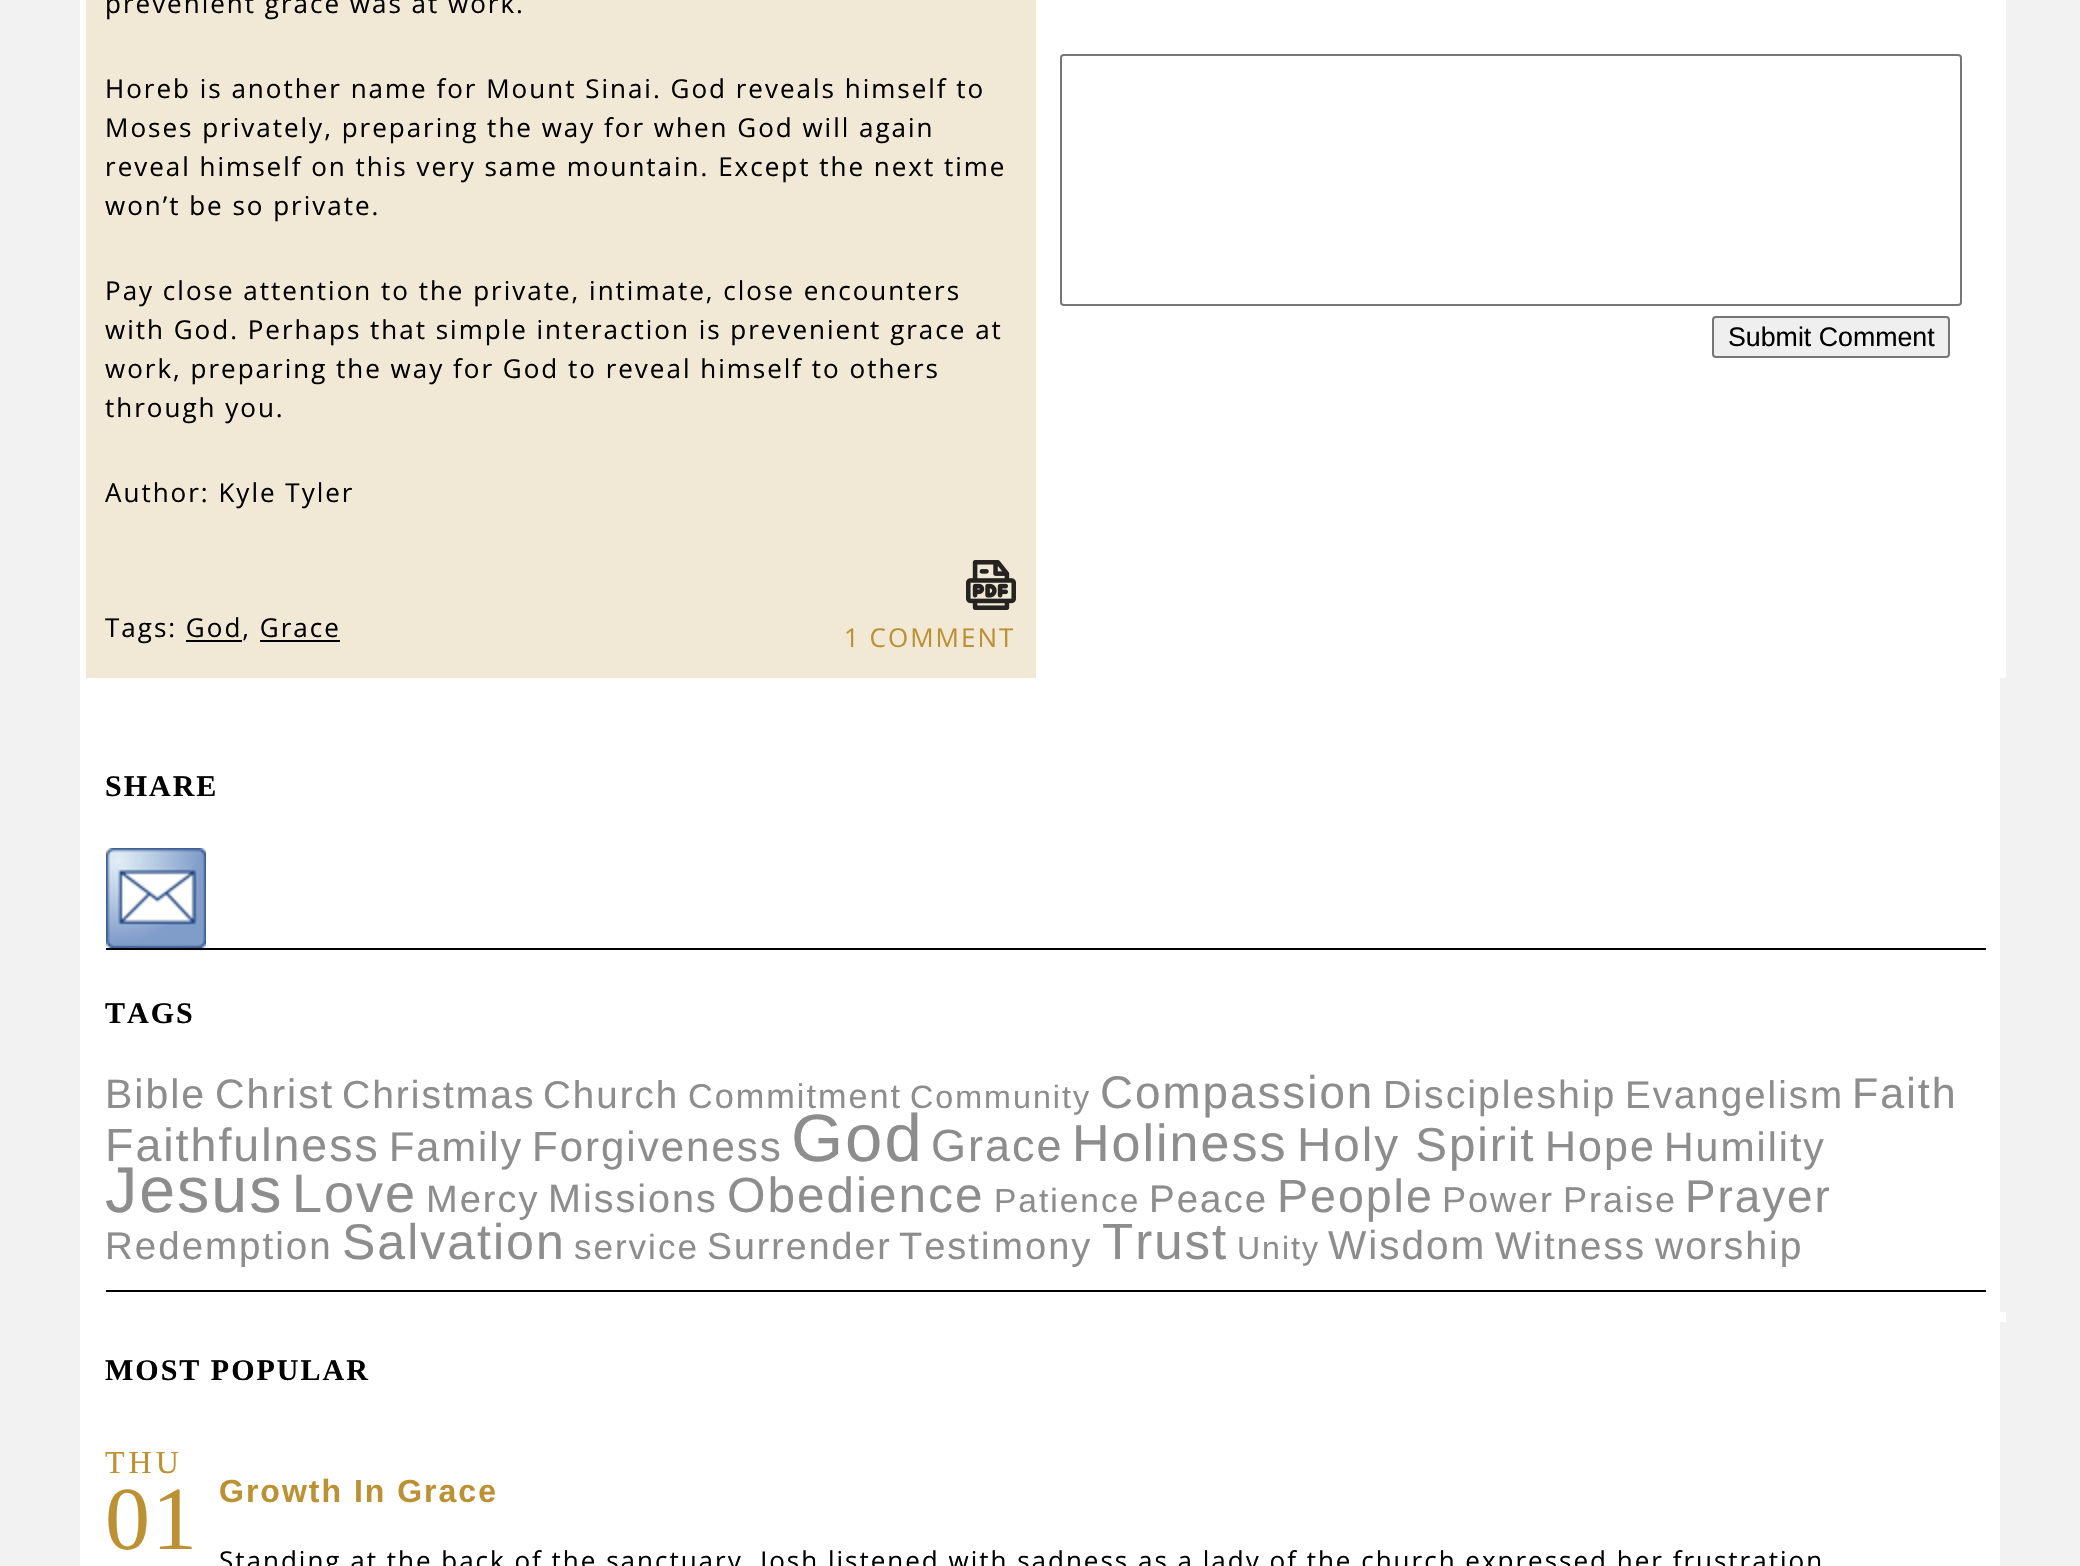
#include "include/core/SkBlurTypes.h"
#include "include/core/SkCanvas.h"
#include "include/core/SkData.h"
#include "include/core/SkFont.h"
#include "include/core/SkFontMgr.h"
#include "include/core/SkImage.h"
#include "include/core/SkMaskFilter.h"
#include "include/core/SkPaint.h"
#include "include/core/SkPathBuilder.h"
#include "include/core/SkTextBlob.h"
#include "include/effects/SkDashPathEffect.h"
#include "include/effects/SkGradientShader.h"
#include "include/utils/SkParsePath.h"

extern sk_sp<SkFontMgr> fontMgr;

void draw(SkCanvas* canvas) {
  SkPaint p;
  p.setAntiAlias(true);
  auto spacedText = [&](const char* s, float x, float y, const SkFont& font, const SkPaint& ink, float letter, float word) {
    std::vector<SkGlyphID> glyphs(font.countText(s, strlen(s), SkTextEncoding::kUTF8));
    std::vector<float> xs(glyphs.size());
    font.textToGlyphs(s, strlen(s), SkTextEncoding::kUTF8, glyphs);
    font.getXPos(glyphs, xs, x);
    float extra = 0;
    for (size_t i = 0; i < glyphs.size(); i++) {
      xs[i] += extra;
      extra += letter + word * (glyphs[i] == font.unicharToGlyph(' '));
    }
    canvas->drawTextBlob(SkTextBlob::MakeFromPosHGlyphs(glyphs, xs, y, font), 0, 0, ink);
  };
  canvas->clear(SkColorSetRGB(242, 242, 242));
  p.setColor(SK_ColorWHITE);
  canvas->drawRect(SkRect::MakeLTRB(80, 0, 2000, 1566), p);
  canvas->drawRect(SkRect::MakeLTRB(2000, 0, 2006, 678), p);
  p.setColor(SkColorSetRGB(241, 232, 213));
  canvas->drawRect(SkRect::MakeLTRB(86, 0, 1036, 678), p);
  canvas->drawImageRect(SkImages::DeferredFromEncodedData(SkData::MakeFromFileName("images/1.png")), SkRect::MakeLTRB(966, 560, 1016, 610), SkSamplingOptions());
  p.setColor(SK_ColorBLACK);
  canvas->drawRect(SkRect::MakeLTRB(186, 640, 242, 642), p);
  canvas->drawRect(SkRect::MakeLTRB(260, 640, 340, 642), p);
  p.setStyle(SkPaint::kStroke_Style);
  p.setStrokeWidth(2);
  p.setColor(SkColorSetRGB(118, 118, 118));
  canvas->drawRoundRect(SkRect::MakeLTRB(1061, 55, 1961, 305), 3, 3, p);
  p.setStyle(SkPaint::kFill_Style);
  p.setColor(SkColorSetRGB(239, 239, 239));
  canvas->drawRoundRect(SkRect::MakeLTRB(1713, 317, 1949, 357), 3, 3, p);
  p.setStyle(SkPaint::kStroke_Style);
  p.setColor(SkColorSetRGB(118, 118, 118));
  canvas->drawRoundRect(SkRect::MakeLTRB(1713, 317, 1949, 357), 3, 3, p);
  canvas->drawImageRect(SkImages::DeferredFromEncodedData(SkData::MakeFromFileName("images/2.png")), SkRect::MakeLTRB(106, 848, 206, 948), SkSamplingOptions());
  p.setStyle(SkPaint::kFill_Style);
  p.setColor(SK_ColorBLACK);
  canvas->drawRect(SkRect::MakeLTRB(106, 948, 1986, 950), p);
  canvas->drawRect(SkRect::MakeLTRB(106, 1290, 1986, 1292), p);
  p.setColor(SK_ColorWHITE);
  canvas->drawRect(SkRect::MakeLTRB(2000, 1312, 2006, 1322), p);
  SkFont font1(fontMgr->matchFamilyStyle("Open Sans", SkFontStyle::Normal()), 26);
  font1.setSubpixel(true);
  p.setColor(SK_ColorBLACK);
  spacedText("prevenient grace was at work.", 105, 13, font1, p, 2, 0);
  spacedText("Horeb is another name for Mount Sinai. God reveals himself to", 105, 98, font1, p, 2, 0);
  spacedText("Moses privately, preparing the way for when God will again", 105, 137, font1, p, 2, 0);
  spacedText("reveal himself on this very same mountain. Except the next time", 105, 176, font1, p, 2, 0);
  spacedText("won’t be so private.", 105, 215, font1, p, 2, 0);
  spacedText("Pay close attention to the private, intimate, close encounters", 105, 300, font1, p, 2, 0);
  spacedText("with God. Perhaps that simple interaction is prevenient grace at", 105, 339, font1, p, 2, 0);
  spacedText("work, preparing the way for God to reveal himself to others", 105, 378, font1, p, 2, 0);
  spacedText("through you.", 105, 417, font1, p, 2, 0);
  spacedText("Author: Kyle Tyler", 105, 502, font1, p, 2, 0);
  spacedText("Tags: God, Grace", 105, 637, font1, p, 2, 0);
  p.setColor(SkColorSetRGB(188, 145, 51));
  spacedText("1 COMMENT", 844, 647, font1, p, 2, 0);
  SkFont font2(fontMgr->matchFamilyStyle("Liberation Sans", SkFontStyle::Normal()), 26.75f);
  font2.setSubpixel(true);
  p.setColor(SK_ColorBLACK);
  canvas->drawString("Submit Comment", 1728, 346, font2, p);
  SkFont font3(fontMgr->matchFamilyStyle("Liberation Serif", SkFontStyle::Bold()), 30);
  font3.setSubpixel(true);
  spacedText("SHARE", 105, 796, font3, p, 2, 0);
  spacedText("TAGS", 105, 1023, font3, p, 2, 0);
  SkFont font4(fontMgr->matchFamilyStyle("Liberation Sans", SkFontStyle::Normal()), 41);
  font4.setSubpixel(true);
  p.setColor(SkColorSetRGB(141, 141, 141));
  spacedText("Bible", 105, 1108, font4, p, 2, 0);
  spacedText("Christ", 215, 1108, font4, p, 2, 0);
  SkFont font5(fontMgr->matchFamilyStyle("Liberation Sans", SkFontStyle::Normal()), 39);
  font5.setSubpixel(true);
  spacedText("Christmas", 342, 1108, font5, p, 2, 0);
  SkFont font6(fontMgr->matchFamilyStyle("Liberation Sans", SkFontStyle::Normal()), 38.5f);
  font6.setSubpixel(true);
  spacedText("Church", 543, 1108, font6, p, 2, 0);
  SkFont font7(fontMgr->matchFamilyStyle("Liberation Sans", SkFontStyle::Normal()), 34.25f);
  font7.setSubpixel(true);
  spacedText("Commitment", 688, 1108, font7, p, 2, 0);
  SkFont font8(fontMgr->matchFamilyStyle("Liberation Sans", SkFontStyle::Normal()), 32.25f);
  font8.setSubpixel(true);
  spacedText("Community", 910, 1108, font8, p, 2, 0);
  SkFont font9(fontMgr->matchFamilyStyle("Liberation Sans", SkFontStyle::Normal()), 45.75f);
  font9.setSubpixel(true);
  spacedText("Compassion", 1100, 1108, font9, p, 2, 0);
  SkFont font10(fontMgr->matchFamilyStyle("Liberation Sans", SkFontStyle::Normal()), 39.25f);
  font10.setSubpixel(true);
  spacedText("Discipleship", 1383, 1108, font10, p, 2, 0);
  spacedText("Evangelism", 1625, 1108, font6, p, 2, 0);
  SkFont font11(fontMgr->matchFamilyStyle("Liberation Sans", SkFontStyle::Normal()), 43);
  font11.setSubpixel(true);
  spacedText("Faith", 1852, 1108, font11, p, 2, 0);
  SkFont font12(fontMgr->matchFamilyStyle("Liberation Sans", SkFontStyle::Normal()), 46.5f);
  font12.setSubpixel(true);
  spacedText("Faithfulness", 105, 1161, font12, p, 2, 0);
  SkFont font13(fontMgr->matchFamilyStyle("Liberation Sans", SkFontStyle::Normal()), 41.5f);
  font13.setSubpixel(true);
  spacedText("Family", 389, 1161, font13, p, 2, 0);
  SkFont font14(fontMgr->matchFamilyStyle("Liberation Sans", SkFontStyle::Normal()), 42);
  font14.setSubpixel(true);
  spacedText("Forgiveness", 532, 1161, font14, p, 2, 0);
  SkFont font15(fontMgr->matchFamilyStyle("Liberation Sans", SkFontStyle::Normal()), 67);
  font15.setSubpixel(true);
  spacedText("God", 791, 1161, font15, p, 2, 0);
  SkFont font16(fontMgr->matchFamilyStyle("Liberation Sans", SkFontStyle::Normal()), 45);
  font16.setSubpixel(true);
  spacedText("Grace", 931, 1161, font16, p, 2, 0);
  SkFont font17(fontMgr->matchFamilyStyle("Liberation Sans", SkFontStyle::Normal()), 52);
  font17.setSubpixel(true);
  spacedText("Holiness", 1072, 1161, font17, p, 2, 0);
  SkFont font18(fontMgr->matchFamilyStyle("Liberation Sans", SkFontStyle::Normal()), 47.5f);
  font18.setSubpixel(true);
  spacedText("Holy Spirit", 1297, 1161, font18, p, 2, 0);
  spacedText("Hope", 1545, 1161, font11, p, 2, 0);
  spacedText("Humility", 1664, 1161, font4, p, 2, 0);
  SkFont font19(fontMgr->matchFamilyStyle("Liberation Sans", SkFontStyle::Normal()), 64.5f);
  font19.setSubpixel(true);
  spacedText("Jesus", 105, 1212, font19, p, 2, 0);
  SkFont font20(fontMgr->matchFamilyStyle("Liberation Sans", SkFontStyle::Normal()), 54);
  font20.setSubpixel(true);
  spacedText("Love", 292, 1212, font20, p, 2, 0);
  SkFont font21(fontMgr->matchFamilyStyle("Liberation Sans", SkFontStyle::Normal()), 38);
  font21.setSubpixel(true);
  spacedText("Mercy", 426, 1212, font21, p, 2, 0);
  SkFont font22(fontMgr->matchFamilyStyle("Liberation Sans", SkFontStyle::Normal()), 39.5f);
  font22.setSubpixel(true);
  spacedText("Missions", 548, 1212, font22, p, 2, 0);
  SkFont font23(fontMgr->matchFamilyStyle("Liberation Sans", SkFontStyle::Normal()), 49.5f);
  font23.setSubpixel(true);
  spacedText("Obedience", 727, 1212, font23, p, 2, 0);
  SkFont font24(fontMgr->matchFamilyStyle("Liberation Sans", SkFontStyle::Normal()), 33.5f);
  font24.setSubpixel(true);
  spacedText("Patience", 994, 1212, font24, p, 2, 0);
  spacedText("Peace", 1149, 1212, font6, p, 2, 0);
  spacedText("People", 1277, 1212, font12, p, 2, 0);
  SkFont font25(fontMgr->matchFamilyStyle("Liberation Sans", SkFontStyle::Normal()), 36);
  font25.setSubpixel(true);
  spacedText("Power", 1442, 1212, font25, p, 2, 0);
  spacedText("Praise", 1563, 1212, font25, p, 2, 0);
  spacedText("Prayer", 1685, 1212, font9, p, 2, 0);
  spacedText("Redemption", 105, 1259, font6, p, 2, 0);
  SkFont font26(fontMgr->matchFamilyStyle("Liberation Sans", SkFontStyle::Normal()), 50);
  font26.setSubpixel(true);
  spacedText("Salvation", 342, 1259, font26, p, 2, 0);
  SkFont font27(fontMgr->matchFamilyStyle("Liberation Sans", SkFontStyle::Normal()), 35);
  font27.setSubpixel(true);
  spacedText("service", 574, 1259, font27, p, 2, 0);
  SkFont font28(fontMgr->matchFamilyStyle("Liberation Sans", SkFontStyle::Normal()), 37.5f);
  font28.setSubpixel(true);
  spacedText("Surrender", 707, 1259, font28, p, 2, 0);
  spacedText("Testimony", 899, 1259, font21, p, 2, 0);
  SkFont font29(fontMgr->matchFamilyStyle("Liberation Sans", SkFontStyle::Normal()), 51);
  font29.setSubpixel(true);
  spacedText("Trust", 1102, 1259, font29, p, 2, 0);
  SkFont font30(fontMgr->matchFamilyStyle("Liberation Sans", SkFontStyle::Normal()), 32);
  font30.setSubpixel(true);
  spacedText("Unity", 1237, 1259, font30, p, 2, 0);
  SkFont font31(fontMgr->matchFamilyStyle("Liberation Sans", SkFontStyle::Normal()), 40.5f);
  font31.setSubpixel(true);
  spacedText("Wisdom", 1328, 1259, font31, p, 2, 0);
  spacedText("Witness", 1495, 1259, font6, p, 2, 0);
  spacedText("worship", 1655, 1259, font5, p, 2, 0);
  p.setColor(SK_ColorBLACK);
  spacedText("MOST POPULAR", 105, 1380, font3, p, 2, 0);
  SkFont font32(fontMgr->matchFamilyStyle("Liberation Serif", SkFontStyle::Normal()), 32);
  font32.setSubpixel(true);
  p.setColor(SkColorSetRGB(188, 145, 51));
  spacedText("THU", 105, 1473, font32, p, 4, 0);
  SkFont font33(fontMgr->matchFamilyStyle("Liberation Serif", SkFontStyle::Normal()), 90);
  font33.setSubpixel(true);
  spacedText("01", 105, 1549, font33, p, 2, 0);
  SkFont font34(fontMgr->matchFamilyStyle("Liberation Sans", SkFontStyle::Bold()), 32);
  font34.setSubpixel(true);
  spacedText("Growth In Grace", 219, 1502, font34, p, 2, 0);
  p.setColor(SK_ColorBLACK);
  spacedText("Standing at the back of the sanctuary, Josh listened with sadness as a lady of the church expressed her frustration", 219, 1570, font1, p, 2, 0);
}
